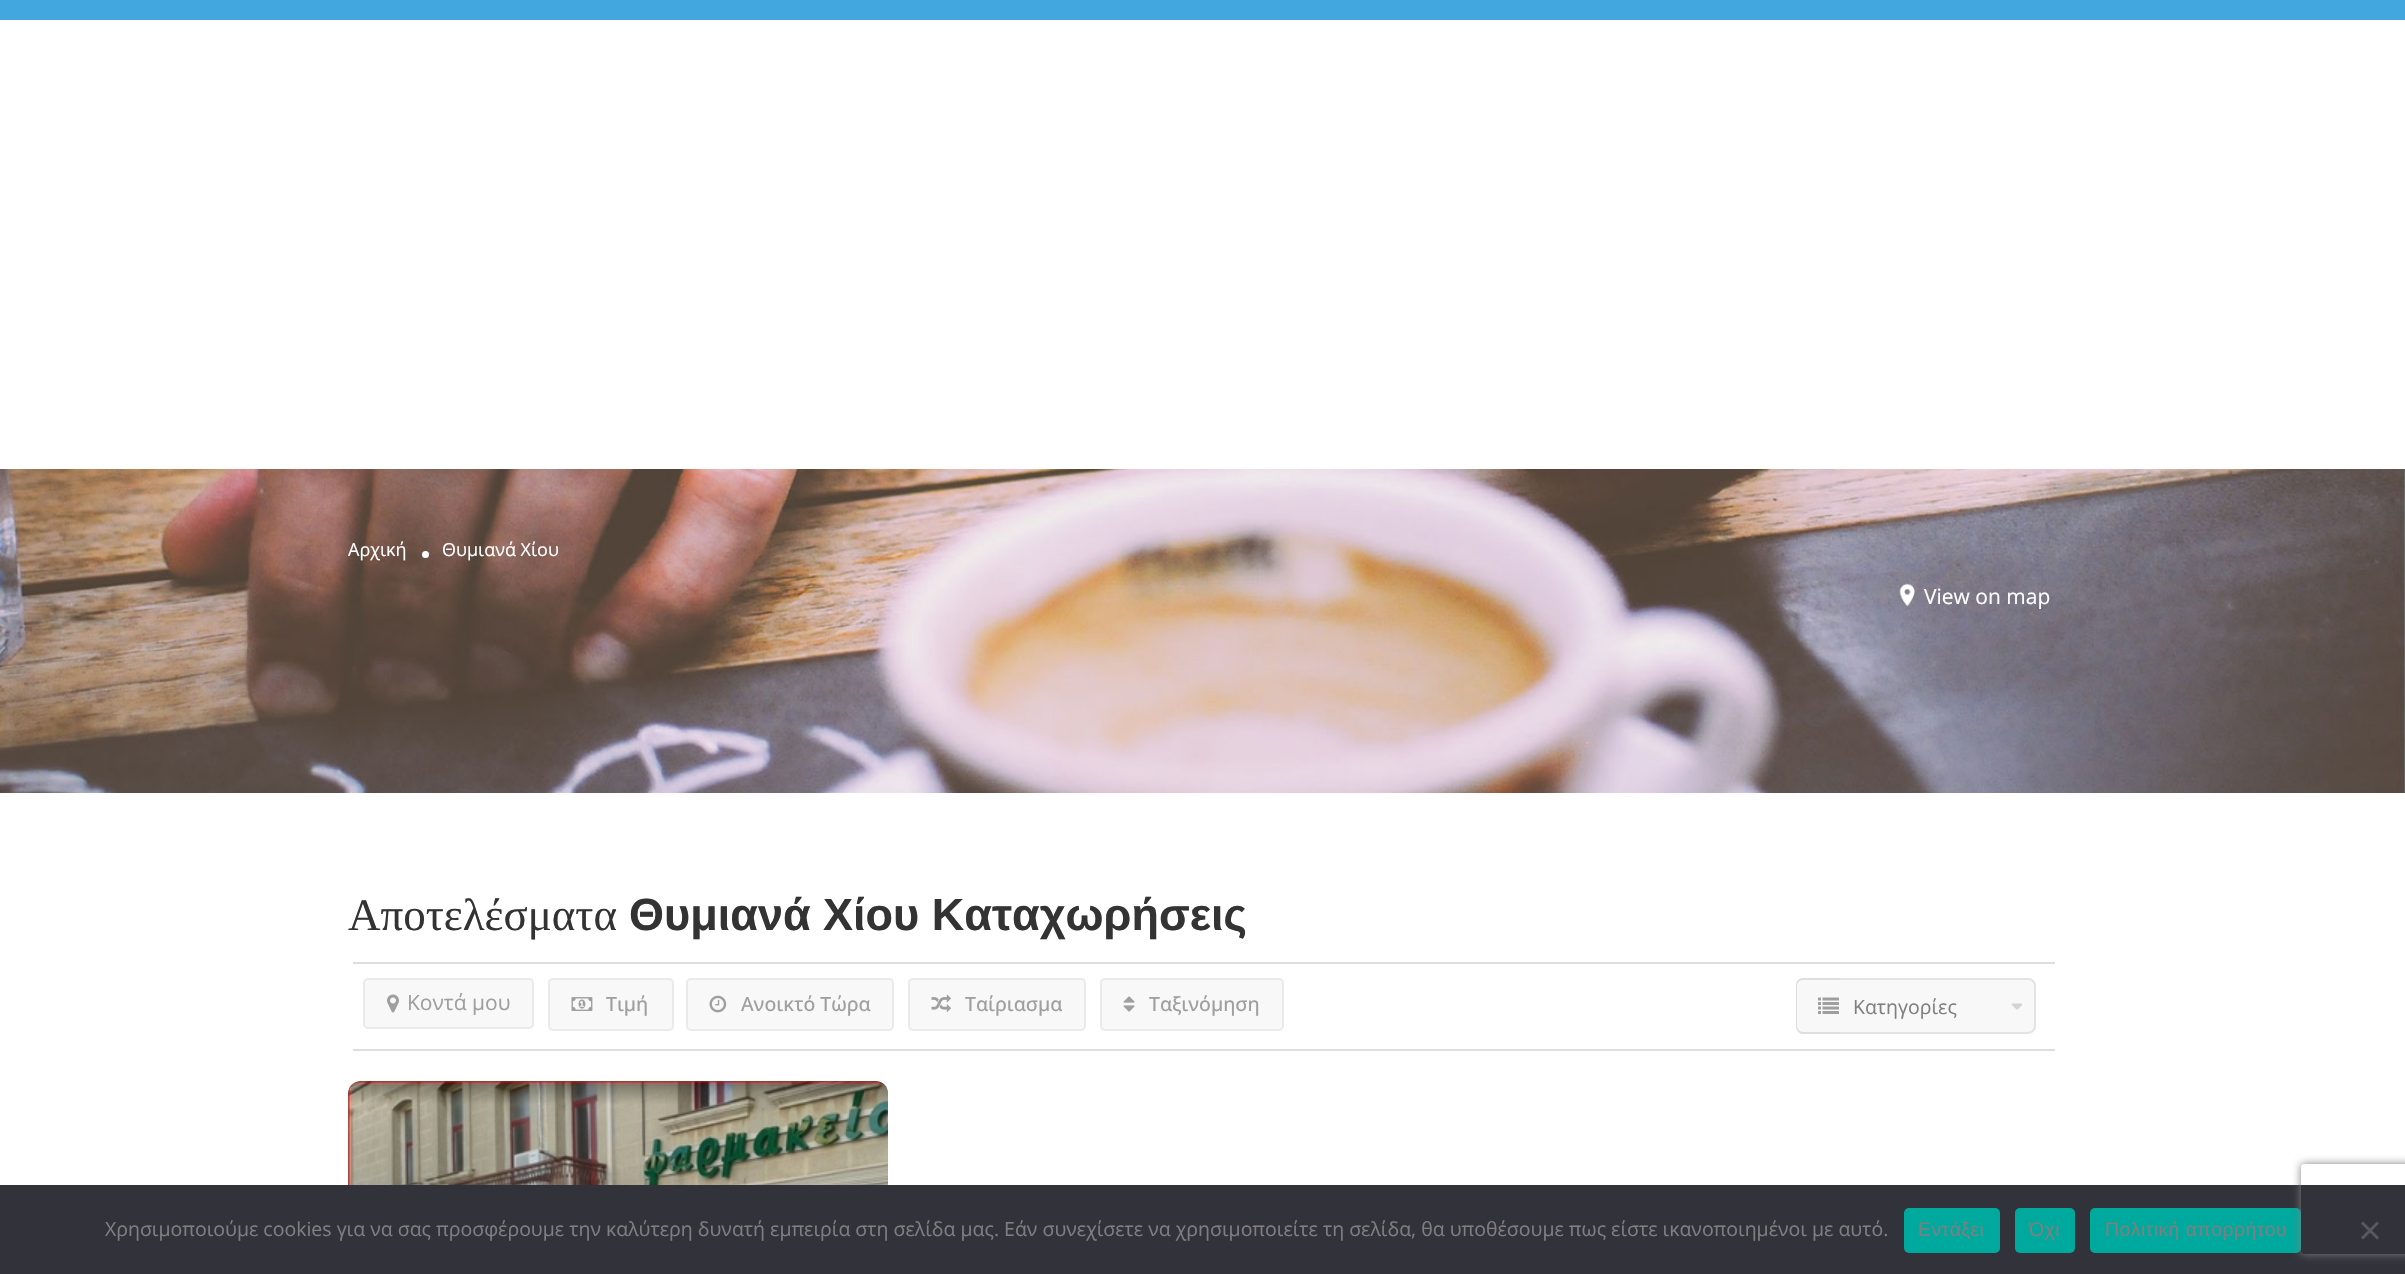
#include "include/core/SkBlurTypes.h"
#include "include/core/SkCanvas.h"
#include "include/core/SkData.h"
#include "include/core/SkFont.h"
#include "include/core/SkFontMgr.h"
#include "include/core/SkImage.h"
#include "include/core/SkMaskFilter.h"
#include "include/core/SkPaint.h"
#include "include/core/SkPathBuilder.h"
#include "include/core/SkTextBlob.h"
#include "include/effects/SkDashPathEffect.h"
#include "include/effects/SkGradientShader.h"
#include "include/utils/SkParsePath.h"

extern sk_sp<SkFontMgr> fontMgr;

void draw(SkCanvas* canvas) {
  SkPaint p;
  p.setAntiAlias(true);
  auto spacedText = [&](const char* s, float x, float y, const SkFont& font, const SkPaint& ink, float letter, float word) {
    std::vector<SkGlyphID> glyphs(font.countText(s, strlen(s), SkTextEncoding::kUTF8));
    std::vector<float> xs(glyphs.size());
    font.textToGlyphs(s, strlen(s), SkTextEncoding::kUTF8, glyphs);
    font.getXPos(glyphs, xs, x);
    float extra = 0;
    for (size_t i = 0; i < glyphs.size(); i++) {
      xs[i] += extra;
      extra += letter + word * (glyphs[i] == font.unicharToGlyph(' '));
    }
    canvas->drawTextBlob(SkTextBlob::MakeFromPosHGlyphs(glyphs, xs, y, font), 0, 0, ink);
  };
  canvas->clear(SK_ColorWHITE);
  p.setColor(SkColorSetRGB(66, 167, 223));
  canvas->drawRect(SkRect::MakeLTRB(0, 0, 2405, 20), p);
  canvas->drawImageRect(SkImages::DeferredFromEncodedData(SkData::MakeFromFileName("images/1.png")), SkRect::MakeLTRB(0, 469, 2405, 793), SkSamplingOptions());
  p.setColor(SK_ColorWHITE);
  canvas->drawCircle(425.5f, 554.5f, 3.5f, p);
  canvas->drawImageRect(SkImages::DeferredFromEncodedData(SkData::MakeFromFileName("images/2.png")), SkRect::MakeLTRB(1899, 583, 1915, 607), SkSamplingOptions());
  p.setColor(SkColorSetRGB(222, 222, 222));
  canvas->drawRect(SkRect::MakeLTRB(353, 962, 2055, 964), p);
  canvas->drawRect(SkRect::MakeLTRB(353, 1049, 2055, 1051), p);
  p.setColor(SkColorSetRGB(248, 248, 248));
  canvas->drawRoundRect(SkRect::MakeLTRB(364, 979, 533, 1028), 4, 4, p);
  p.setStyle(SkPaint::kStroke_Style);
  p.setStrokeWidth(2);
  p.setColor(SkColorSetRGB(234, 234, 234));
  canvas->drawRoundRect(SkRect::MakeLTRB(364, 979, 533, 1028), 4, 4, p);
  canvas->drawImageRect(SkImages::DeferredFromEncodedData(SkData::MakeFromFileName("images/3.png")), SkRect::MakeLTRB(387, 994, 399, 1013), SkSamplingOptions());
  p.setStyle(SkPaint::kFill_Style);
  p.setColor(SkColorSetRGB(248, 248, 248));
  canvas->drawRoundRect(SkRect::MakeLTRB(549, 979, 673, 1030), 4, 4, p);
  p.setStyle(SkPaint::kStroke_Style);
  p.setColor(SkColorSetRGB(234, 234, 234));
  canvas->drawRoundRect(SkRect::MakeLTRB(549, 979, 673, 1030), 4, 4, p);
  canvas->drawImageRect(SkImages::DeferredFromEncodedData(SkData::MakeFromFileName("images/4.png")), SkRect::MakeLTRB(571, 997, 593, 1011), SkSamplingOptions());
  p.setStyle(SkPaint::kFill_Style);
  p.setColor(SkColorSetRGB(248, 248, 248));
  canvas->drawRoundRect(SkRect::MakeLTRB(687, 979, 893, 1030), 4, 4, p);
  p.setStyle(SkPaint::kStroke_Style);
  p.setColor(SkColorSetRGB(234, 234, 234));
  canvas->drawRoundRect(SkRect::MakeLTRB(687, 979, 893, 1030), 4, 4, p);
  canvas->drawImageRect(SkImages::DeferredFromEncodedData(SkData::MakeFromFileName("images/5.png")), SkRect::MakeLTRB(709, 995, 727, 1013), SkSamplingOptions());
  p.setStyle(SkPaint::kFill_Style);
  p.setColor(SkColorSetRGB(248, 248, 248));
  canvas->drawRoundRect(SkRect::MakeLTRB(909, 979, 1085, 1030), 4, 4, p);
  p.setStyle(SkPaint::kStroke_Style);
  p.setColor(SkColorSetRGB(234, 234, 234));
  canvas->drawRoundRect(SkRect::MakeLTRB(909, 979, 1085, 1030), 4, 4, p);
  canvas->drawImageRect(SkImages::DeferredFromEncodedData(SkData::MakeFromFileName("images/6.png")), SkRect::MakeLTRB(931, 994, 951, 1012), SkSamplingOptions());
  p.setStyle(SkPaint::kFill_Style);
  p.setColor(SkColorSetRGB(248, 248, 248));
  canvas->drawRoundRect(SkRect::MakeLTRB(1101, 979, 1283, 1030), 4, 4, p);
  p.setStyle(SkPaint::kStroke_Style);
  p.setColor(SkColorSetRGB(234, 234, 234));
  canvas->drawRoundRect(SkRect::MakeLTRB(1101, 979, 1283, 1030), 4, 4, p);
  canvas->drawImageRect(SkImages::DeferredFromEncodedData(SkData::MakeFromFileName("images/7.png")), SkRect::MakeLTRB(1123, 996, 1135, 1012), SkSamplingOptions());
  p.setStyle(SkPaint::kFill_Style);
  p.setColor(SkColorSetRGB(248, 248, 248));
  canvas->drawPath(SkPathBuilder().moveTo(1804, 978).lineTo(1841, 978).lineTo(1841, 1034).lineTo(1804, 1034).cubicTo(1799.5f, 1034, 1796, 1030.5f, 1796, 1026).lineTo(1796, 986).cubicTo(1796, 981.5f, 1799.5f, 978, 1804, 978).close().detach(), p);
  p.setColor(SkColorSetRGB(222, 222, 222));
  canvas->drawPath(SkPathBuilder(SkPathFillType::kEvenOdd).moveTo(1803, 978).lineTo(1840, 978).lineTo(1840, 1034).lineTo(1803, 1034).cubicTo(1799, 1034, 1796, 1030, 1796, 1026).lineTo(1796, 986).cubicTo(1796, 981, 1799, 978, 1803, 978).close().moveTo(1803, 980).lineTo(1840, 980).lineTo(1840, 1032).lineTo(1803, 1032).cubicTo(1800, 1032, 1797, 1029, 1797, 1026).lineTo(1797, 986).cubicTo(1797, 982, 1800, 980, 1803, 980).close().detach(), p);
  canvas->drawImageRect(SkImages::DeferredFromEncodedData(SkData::MakeFromFileName("images/8.png")), SkRect::MakeLTRB(1818, 997, 1839, 1014), SkSamplingOptions());
  p.setColor(SkColorSetRGB(248, 248, 248));
  canvas->drawPath(SkPathBuilder().moveTo(1841, 978).lineTo(2028, 978).cubicTo(2032.5f, 978, 2036, 981.5f, 2036, 986).lineTo(2036, 1026).cubicTo(2036, 1030.5f, 2032.5f, 1034, 2028, 1034).lineTo(1841, 1034).close().detach(), p);
  p.setColor(SkColorSetRGB(227, 227, 227));
  canvas->drawPath(SkPathBuilder(SkPathFillType::kEvenOdd).moveTo(1840, 978).lineTo(2028, 978).cubicTo(2032, 978, 2036, 981, 2036, 986).lineTo(2036, 1026).cubicTo(2036, 1030, 2032, 1034, 2028, 1034).lineTo(1840, 1034).close().moveTo(1840, 980).lineTo(2028, 980).cubicTo(2031, 980, 2034, 982, 2034, 986).lineTo(2034, 1026).cubicTo(2034, 1029, 2031, 1032, 2028, 1032).lineTo(1840, 1032).close().detach(), p);
  canvas->drawImageRect(SkImages::DeferredFromEncodedData(SkData::MakeFromFileName("images/9.png")), SkRect::MakeLTRB(2011, 1003, 2022, 1010), SkSamplingOptions());
  p.setStyle(SkPaint::kStroke_Style);
  canvas->drawRoundRect(SkRect::MakeLTRB(349, 1083, 887, 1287), 11, 11, p);
  canvas->drawImageRect(SkImages::DeferredFromEncodedData(SkData::MakeFromFileName("images/10.png")), SkRect::MakeLTRB(348, 1081, 888, 1185), SkSamplingOptions());
  p.setStyle(SkPaint::kFill_Style);
  p.setColor(SkColorSetRGB(50, 50, 58));
  canvas->drawRect(SkRect::MakeLTRB(0, 1185, 2405, 1274), p);
  p.setColor(SkColorSetRGB(0, 169, 157));
  canvas->drawRoundRect(SkRect::MakeLTRB(1904, 1208, 2000, 1253), 5, 5, p);
  canvas->drawRoundRect(SkRect::MakeLTRB(2015, 1208, 2075, 1253), 5, 5, p);
  canvas->drawRoundRect(SkRect::MakeLTRB(2090, 1208, 2301, 1253), 5, 5, p);
  p.setColor(SkColorSetRGB(89, 89, 93));
  canvas->drawPath(SkPathBuilder().moveTo(2377, 1221.5f).lineTo(2379, 1223.5f).lineTo(2363, 1239.5f).lineTo(2361, 1237.5f).close().detach(), p);
  canvas->drawPath(SkPathBuilder().moveTo(2361, 1223.5f).lineTo(2363, 1221.5f).lineTo(2379, 1237.5f).lineTo(2377, 1239.5f).close().detach(), p);
  canvas->save();
  canvas->clipPath(SkPathBuilder(SkPathFillType::kEvenOdd).moveTo(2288, 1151).lineTo(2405, 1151).lineTo(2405, 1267).lineTo(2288, 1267).close().moveTo(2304, 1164).lineTo(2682, 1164).cubicTo(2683.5f, 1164, 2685, 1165.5f, 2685, 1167).lineTo(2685, 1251).cubicTo(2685, 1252.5f, 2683.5f, 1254, 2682, 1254).lineTo(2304, 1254).cubicTo(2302.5f, 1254, 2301, 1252.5f, 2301, 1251).lineTo(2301, 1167).cubicTo(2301, 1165.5f, 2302.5f, 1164, 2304, 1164).close().detach(), true);
  p.setColor(SkColorSetRGB(128, 128, 128));
  p.setMaskFilter(SkMaskFilter::MakeBlur(kNormal_SkBlurStyle, 4));
  canvas->drawRoundRect(SkRect::MakeLTRB(2301, 1164, 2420, 1254), 3, 3, p);
  p.setMaskFilter(nullptr);
  canvas->restore();
  SkFont font1(fontMgr->matchFamilyStyle("Open Sans", SkFontStyle::Normal()), 18);
  font1.setSubpixel(true);
  p.setColor(SK_ColorWHITE);
  canvas->drawString("Αρχική", 348, 556, font1, p);
  canvas->drawString("Θυμιανά Χίου", 442, 556, font1, p);
  SkFont font2(fontMgr->matchFamilyStyle("Open Sans", SkFontStyle::Normal()), 21);
  font2.setSubpixel(true);
  canvas->drawString("View on map", 1924, 604, font2, p);
  SkFont font3(fontMgr->matchFamilyStyle("Liberation Serif", SkFontStyle::Normal()), 45);
  font3.setSubpixel(true);
  p.setColor(SkColorSetRGB(51, 51, 51));
  canvas->drawString("Αποτελέσματα", 348, 930, font3, p);
  SkFont font4(fontMgr->matchFamilyStyle("Liberation Sans", SkFontStyle::Bold()), 45);
  font4.setSubpixel(true);
  canvas->drawString("Θυμιανά Χίου Καταχωρήσεις", 629, 930, font4, p);
  p.setColor(SkColorSetRGB(159, 159, 159));
  canvas->drawString("Κοντά μου", 407, 1010, font2, p);
  SkFont font5(fontMgr->matchFamilyStyle("Open Sans", SkFontStyle(500, SkFontStyle::kNormal_Width, SkFontStyle::kUpright_Slant)), 19.5f);
  font5.setSubpixel(true);
  canvas->drawString("Τιμή", 606, 1011, font5, p);
  canvas->drawString("Ανοικτό Τώρα", 741, 1011, font5, p);
  canvas->drawString("Ταίριασμα", 965, 1011, font5, p);
  canvas->drawString("Ταξινόμηση", 1149, 1011, font5, p);
  SkFont font6(fontMgr->matchFamilyStyle("Open Sans", SkFontStyle::Normal()), 19.5f);
  font6.setSubpixel(true);
  p.setColor(SkColorSetRGB(127, 127, 127));
  canvas->drawString("Κατηγορίες", 1853, 1014, font6, p);
  canvas->drawString("Χρησιμοποιούμε cookies για να σας προσφέρουμε την καλύτερη δυνατή εμπειρία στη σελίδα μας. Εάν συνεχίσετε να χρησιμοποιείτε τη σελίδα, θα υποθέσουμε πως είστε ικανοποιημένοι με αυτό.", 105, 1236, font6, p);
  SkFont font7(fontMgr->matchFamilyStyle("Liberation Sans", SkFontStyle::Normal()), 19.5f);
  font7.setSubpixel(true);
  spacedText("Εντάξει", 1918, 1236, font7, p, 0.4f, 0);
  spacedText("Όχι", 2029, 1236, font7, p, 0.4f, 0);
  spacedText("Πολιτική απορρήτου", 2105, 1236, font7, p, 0.4f, 0);
}
